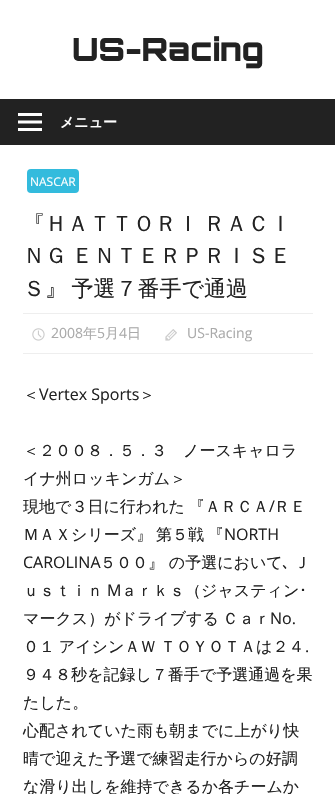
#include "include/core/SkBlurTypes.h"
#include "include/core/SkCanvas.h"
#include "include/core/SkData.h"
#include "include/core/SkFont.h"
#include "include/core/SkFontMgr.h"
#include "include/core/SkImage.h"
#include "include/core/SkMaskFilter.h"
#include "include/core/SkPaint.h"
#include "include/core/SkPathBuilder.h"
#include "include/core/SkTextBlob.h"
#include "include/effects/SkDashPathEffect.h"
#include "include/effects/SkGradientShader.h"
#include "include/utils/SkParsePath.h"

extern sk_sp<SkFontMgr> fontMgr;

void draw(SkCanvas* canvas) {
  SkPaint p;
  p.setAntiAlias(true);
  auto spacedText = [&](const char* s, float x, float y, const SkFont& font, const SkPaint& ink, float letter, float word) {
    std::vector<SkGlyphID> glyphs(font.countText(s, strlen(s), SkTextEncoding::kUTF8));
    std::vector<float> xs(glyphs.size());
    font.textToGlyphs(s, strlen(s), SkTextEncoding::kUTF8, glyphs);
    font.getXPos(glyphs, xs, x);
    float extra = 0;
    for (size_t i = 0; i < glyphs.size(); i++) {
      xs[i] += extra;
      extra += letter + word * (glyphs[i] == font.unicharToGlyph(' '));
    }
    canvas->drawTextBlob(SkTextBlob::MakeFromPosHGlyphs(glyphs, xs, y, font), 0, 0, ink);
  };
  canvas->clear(SK_ColorWHITE);
  p.setColor(SkColorSetRGB(34, 34, 34));
  canvas->drawRect(SkRect::MakeLTRB(0, 99, 335, 145), p);
  canvas->drawImageRect(SkImages::DeferredFromEncodedData(SkData::MakeFromFileName("images/1.png")), SkRect::MakeLTRB(18, 113, 42, 131), SkSamplingOptions());
  p.setColor(SkColorSetRGB(51, 187, 221));
  canvas->drawRoundRect(SkRect::MakeLTRB(27, 169, 79, 193), 4, 4, p);
  p.setColor(SkColorSetRGB(238, 238, 238));
  canvas->drawRect(SkRect::MakeLTRB(23, 313, 313, 314), p);
  canvas->drawRect(SkRect::MakeLTRB(23, 353, 313, 354), p);
  canvas->drawImageRect(SkImages::DeferredFromEncodedData(SkData::MakeFromFileName("images/2.png")), SkRect::MakeLTRB(32, 328, 45, 341), SkSamplingOptions());
  canvas->drawImageRect(SkImages::DeferredFromEncodedData(SkData::MakeFromFileName("images/3.png")), SkRect::MakeLTRB(165, 329, 177, 341), SkSamplingOptions());
  SkFont font1(fontMgr->matchFamilyStyle("Orbitron", SkFontStyle(900, SkFontStyle::kNormal_Width, SkFontStyle::kUpright_Slant)), 32);
  font1.setSubpixel(true);
  p.setColor(SkColorSetRGB(34, 34, 34));
  canvas->drawString("US-Racing", 72, 61, font1, p);
  SkFont font2(fontMgr->matchFamilyStyle("WenQuanYi Zen Hei", SkFontStyle::Bold()), 14);
  font2.setSubpixel(true);
  p.setColor(SK_ColorWHITE);
  canvas->drawString("メニュー", 60, 127, font2, p);
  SkFont font3(fontMgr->matchFamilyStyle("Open Sans", SkFontStyle::Normal()), 12);
  font3.setSubpixel(true);
  canvas->drawString("NASCAR", 30, 186, font3, p);
  SkFont font4(fontMgr->matchFamilyStyle("WenQuanYi Zen Hei", SkFontStyle(500, SkFontStyle::kNormal_Width, SkFontStyle::kUpright_Slant)), 22);
  font4.setSubpixel(true);
  p.setColor(SkColorSetRGB(34, 34, 34));
  spacedText("『ＨＡＴＴＯＲＩ ＲＡＣＩ", 23, 231, font4, p, 0, -2);
  spacedText("ＮＧ ＥＮＴＥＲＰＲＩＳＥ", 23, 263, font4, p, 0, -2);
  spacedText("Ｓ』 予選７番手で通過", 23, 296, font4, p, 0, -2);
  SkFont font5(fontMgr->matchFamilyStyle("Open Sans", SkFontStyle::Normal()), 14);
  font5.setSubpixel(true);
  p.setColor(SkColorSetRGB(170, 170, 170));
  canvas->drawString("2008", 51, 338, font5, p);
  SkFont font6(fontMgr->matchFamilyStyle("WenQuanYi Zen Hei", SkFontStyle(500, SkFontStyle::kNormal_Width, SkFontStyle::kUpright_Slant)), 14);
  font6.setSubpixel(true);
  canvas->drawString("年", 83, 338, font6, p);
  canvas->drawString("5", 97, 338, font5, p);
  canvas->drawString("月", 105, 338, font6, p);
  canvas->drawString("4", 119, 338, font5, p);
  canvas->drawString("日", 127, 338, font6, p);
  canvas->drawString("US-Racing", 187, 338, font5, p);
  SkFont font7(fontMgr->matchFamilyStyle("WenQuanYi Zen Hei", SkFontStyle(500, SkFontStyle::kNormal_Width, SkFontStyle::kUpright_Slant)), 16);
  font7.setSubpixel(true);
  p.setColor(SkColorSetRGB(34, 34, 34));
  canvas->drawString("＜", 23, 400, font7, p);
  SkFont font8(fontMgr->matchFamilyStyle("Open Sans", SkFontStyle::Normal()), 16);
  font8.setSubpixel(true);
  canvas->drawString("Vertex Sports", 39, 400, font8, p);
  canvas->drawString("＞", 139, 400, font7, p);
  canvas->drawString("＜２００８．５．３　ノースキャロラ", 23, 456, font7, p);
  canvas->drawString("イナ州ロッキンガム＞", 23, 484, font7, p);
  spacedText("現地で３日に行われた 『ＡＲＣＡ", 23, 512, font7, p, 0, -1);
  canvas->drawString("/", 269, 512, font8, p);
  canvas->drawString("ＲＥ", 274, 512, font7, p);
  spacedText("ＭＡＸシリーズ』 第５戦 『", 23, 540, font7, p, 0, -1);
  canvas->drawString("NORTH", 224, 540, font8, p);
  canvas->drawString("CAROLINA", 23, 568, font8, p);
  canvas->drawString("５００』 の予選において", 100, 568, font7, p);
  SkFont font9(fontMgr->matchFamilyStyle("IPAPGothic", SkFontStyle::Normal()), 16);
  font9.setSubpixel(true);
  canvas->drawString("､", 282, 568, font9, p);
  canvas->drawString("Ｊ", 294, 568, font7, p);
  canvas->drawString("ｕｓｔｉｎ", 23, 596, font7, p);
  canvas->drawString("M", 107, 596, font8, p);
  canvas->drawString("ａｒｋｓ（ジャスティン", 121, 596, font7, p);
  canvas->drawString("･", 299, 596, font9, p);
  spacedText("マークス）がドライブする Ｃａｒ", 23, 624, font7, p, 0, -1);
  canvas->drawString("No.", 270, 624, font8, p);
  spacedText("０１ アイシンＡＷ ＴＯＹＯＴＡは２４", 23, 652, font7, p, 0, -1);
  canvas->drawString(".", 305, 652, font8, p);
  canvas->drawString("９４８秒を記録し７番手で予選通過を果", 23, 680, font7, p);
  canvas->drawString("たした。", 23, 708, font7, p);
  canvas->drawString("心配されていた雨も朝までに上がり快", 23, 736, font7, p);
  canvas->drawString("晴で迎えた予選で練習走行からの好調", 23, 764, font7, p);
  canvas->drawString("な滑り出しを維持できるか各チームか", 23, 792, font7, p);
}
